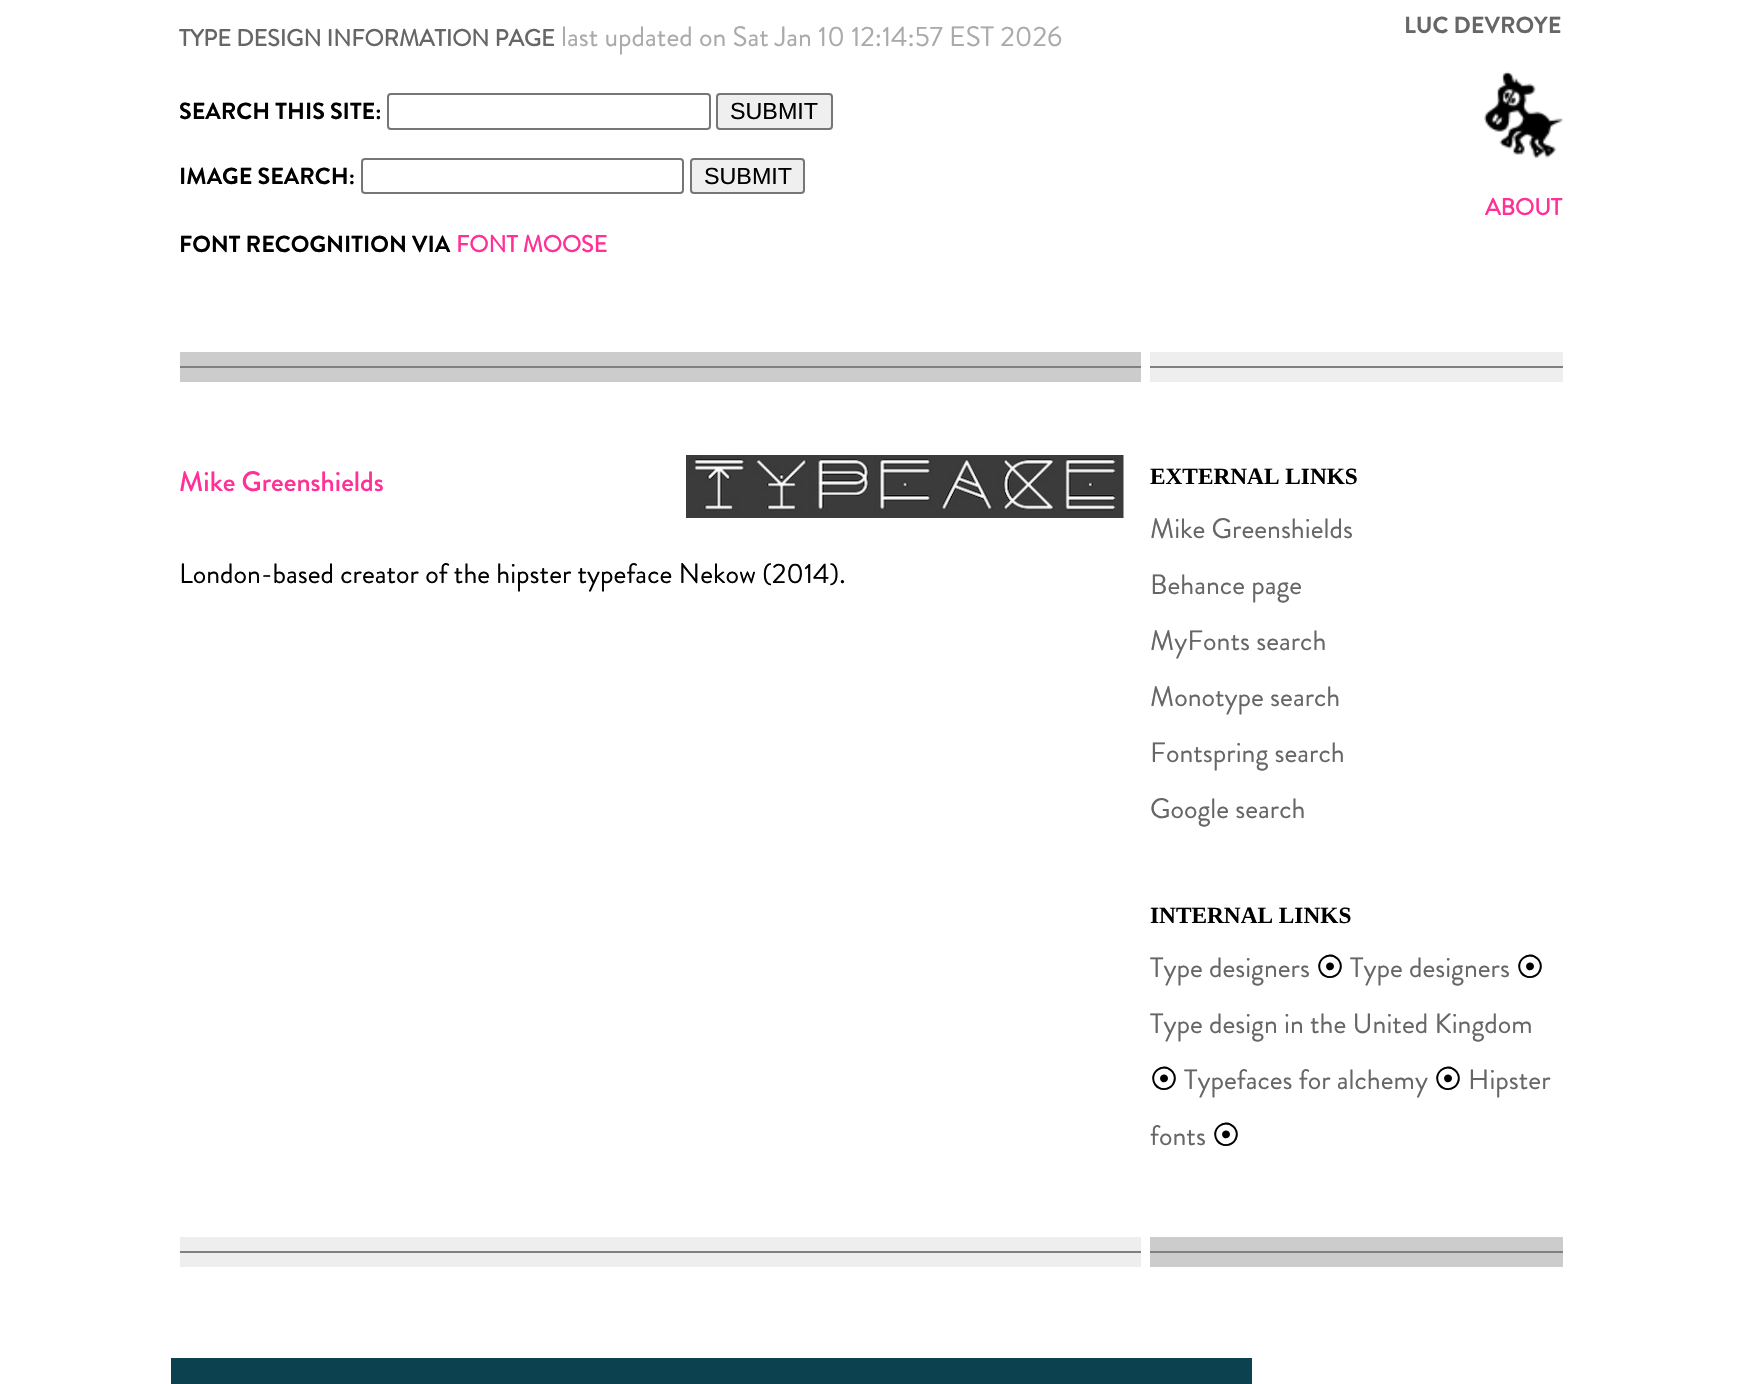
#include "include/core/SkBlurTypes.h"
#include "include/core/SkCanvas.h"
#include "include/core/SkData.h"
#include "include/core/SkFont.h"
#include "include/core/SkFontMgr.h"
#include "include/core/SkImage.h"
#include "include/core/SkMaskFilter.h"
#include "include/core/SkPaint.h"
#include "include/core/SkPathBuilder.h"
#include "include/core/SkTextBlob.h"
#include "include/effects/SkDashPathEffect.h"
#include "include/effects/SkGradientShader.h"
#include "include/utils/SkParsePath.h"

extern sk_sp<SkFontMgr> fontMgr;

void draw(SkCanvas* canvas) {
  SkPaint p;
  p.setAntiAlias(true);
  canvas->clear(SK_ColorWHITE);
  p.setStyle(SkPaint::kStroke_Style);
  p.setStrokeWidth(2);
  p.setColor(SkColorSetRGB(118, 118, 118));
  canvas->drawRoundRect(SkRect::MakeLTRB(388, 94, 710, 129), 3, 3, p);
  p.setStyle(SkPaint::kFill_Style);
  p.setColor(SkColorSetRGB(239, 239, 239));
  canvas->drawRoundRect(SkRect::MakeLTRB(717, 94, 832, 129), 3, 3, p);
  p.setStyle(SkPaint::kStroke_Style);
  p.setColor(SkColorSetRGB(118, 118, 118));
  canvas->drawRoundRect(SkRect::MakeLTRB(717, 94, 832, 129), 3, 3, p);
  canvas->drawRoundRect(SkRect::MakeLTRB(362, 159, 683, 193), 3, 3, p);
  p.setStyle(SkPaint::kFill_Style);
  p.setColor(SkColorSetRGB(239, 239, 239));
  canvas->drawRoundRect(SkRect::MakeLTRB(691, 159, 804, 193), 3, 3, p);
  p.setStyle(SkPaint::kStroke_Style);
  p.setColor(SkColorSetRGB(118, 118, 118));
  canvas->drawRoundRect(SkRect::MakeLTRB(691, 159, 804, 193), 3, 3, p);
  canvas->drawImageRect(SkImages::DeferredFromEncodedData(SkData::MakeFromFileName("images/1.png")), SkRect::MakeLTRB(1484, 71, 1563, 158), SkSamplingOptions());
  p.setStyle(SkPaint::kFill_Style);
  p.setColor(SkColorSetRGB(204, 204, 204));
  canvas->drawRect(SkRect::MakeLTRB(180, 352, 1141, 382), p);
  p.setColor(SkColorSetRGB(128, 128, 128));
  canvas->drawRect(SkRect::MakeLTRB(180, 366, 1141, 368), p);
  p.setColor(SkColorSetRGB(238, 238, 238));
  canvas->drawRect(SkRect::MakeLTRB(1150, 352, 1563, 382), p);
  p.setColor(SkColorSetRGB(128, 128, 128));
  canvas->drawRect(SkRect::MakeLTRB(1150, 366, 1563, 368), p);
  canvas->drawImageRect(SkImages::DeferredFromEncodedData(SkData::MakeFromFileName("images/2.png")), SkRect::MakeLTRB(686, 455, 1124, 518), SkSamplingOptions());
  p.setColor(SkColorSetRGB(238, 238, 238));
  canvas->drawRect(SkRect::MakeLTRB(180, 1237, 1141, 1267), p);
  p.setColor(SkColorSetRGB(128, 128, 128));
  canvas->drawRect(SkRect::MakeLTRB(180, 1251, 1141, 1253), p);
  p.setColor(SkColorSetRGB(204, 204, 204));
  canvas->drawRect(SkRect::MakeLTRB(1150, 1237, 1563, 1267), p);
  p.setColor(SkColorSetRGB(128, 128, 128));
  canvas->drawRect(SkRect::MakeLTRB(1150, 1251, 1563, 1253), p);
  p.setColor(SkColorSetRGB(12, 65, 79));
  canvas->drawRect(SkRect::MakeLTRB(171, 1358, 1252, 1384), p);
  SkFont font1(fontMgr->matchFamilyStyle("Brandon Grotesque", SkFontStyle::Bold()), 23.3f);
  font1.setSubpixel(true);
  p.setColor(SkColorSetRGB(102, 102, 102));
  canvas->drawString("TYPE DESIGN INFORMATION PAGE", 179, 46, font1, p);
  SkFont font2(fontMgr->matchFamilyStyle("Brandon Grotesque", SkFontStyle::Normal()), 28);
  font2.setSubpixel(true);
  p.setColor(SkColorSetRGB(170, 170, 170));
  canvas->drawString("last updated on Sat Jan 10 12:14:57 EST 2026", 561, 46, font2, p);
  SkFont font3(fontMgr->matchFamilyStyle("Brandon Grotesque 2", SkFontStyle::Bold()), 23.3f);
  font3.setSubpixel(true);
  p.setColor(SK_ColorBLACK);
  canvas->drawString("SEARCH THIS SITE:", 179, 119, font3, p);
  SkFont font4(fontMgr->matchFamilyStyle("Liberation Sans", SkFontStyle::Normal()), 23.3f);
  font4.setSubpixel(true);
  canvas->drawString("SUBMIT", 730, 119, font4, p);
  canvas->drawString("IMAGE SEARCH:", 179, 184, font3, p);
  canvas->drawString("SUBMIT", 704, 184, font4, p);
  canvas->drawString("FONT RECOGNITION VIA", 179, 252, font3, p);
  p.setColor(SkColorSetRGB(255, 48, 151));
  canvas->drawString("FONT MOOSE", 456, 252, font1, p);
  p.setColor(SkColorSetRGB(102, 102, 102));
  canvas->drawString("LUC DEVROYE", 1404, 33, font3, p);
  p.setColor(SkColorSetRGB(255, 48, 151));
  canvas->drawString("ABOUT", 1485, 215, font1, p);
  SkFont font5(fontMgr->matchFamilyStyle("Brandon Grotesque", SkFontStyle(500, SkFontStyle::kNormal_Width, SkFontStyle::kUpright_Slant)), 28);
  font5.setSubpixel(true);
  canvas->drawString("Mike Greenshields", 179, 491, font5, p);
  p.setColor(SK_ColorBLACK);
  canvas->drawString("London-based creator of the hipster typeface Nekow (2014).", 179, 583, font2, p);
  SkFont font6(fontMgr->matchFamilyStyle("Liberation Serif", SkFontStyle::Bold()), 23.3f);
  font6.setSubpixel(true);
  canvas->drawString("EXTERNAL LINKS", 1150, 484, font6, p);
  p.setColor(SkColorSetRGB(102, 102, 102));
  canvas->drawString("Mike Greenshields", 1150, 538, font2, p);
  canvas->drawString("Behance page", 1150, 594, font2, p);
  canvas->drawString("MyFonts search", 1150, 650, font2, p);
  canvas->drawString("Monotype search", 1150, 706, font2, p);
  canvas->drawString("Fontspring search", 1150, 762, font2, p);
  canvas->drawString("Google search", 1150, 818, font2, p);
  p.setColor(SK_ColorBLACK);
  canvas->drawString("INTERNAL LINKS", 1150, 923, font6, p);
  p.setColor(SkColorSetRGB(102, 102, 102));
  canvas->drawString("Type designers", 1150, 977, font2, p);
  SkFont font7(fontMgr->matchFamilyStyle("IPAGothic", SkFontStyle::Normal()), 28);
  font7.setSubpixel(true);
  p.setColor(SK_ColorBLACK);
  canvas->drawString("⦿", 1316, 977, font7, p);
  p.setColor(SkColorSetRGB(102, 102, 102));
  canvas->drawString("Type designers", 1350, 977, font2, p);
  p.setColor(SK_ColorBLACK);
  canvas->drawString("⦿", 1516, 977, font7, p);
  p.setColor(SkColorSetRGB(102, 102, 102));
  canvas->drawString("Type design in the United Kingdom", 1150, 1033, font2, p);
  p.setColor(SK_ColorBLACK);
  canvas->drawString("⦿", 1150, 1089, font7, p);
  p.setColor(SkColorSetRGB(102, 102, 102));
  canvas->drawString("Typefaces for alchemy", 1184, 1089, font2, p);
  p.setColor(SK_ColorBLACK);
  canvas->drawString("⦿", 1434, 1089, font7, p);
  p.setColor(SkColorSetRGB(102, 102, 102));
  canvas->drawString("Hipster", 1468, 1089, font2, p);
  canvas->drawString("fonts", 1150, 1145, font2, p);
  p.setColor(SK_ColorBLACK);
  canvas->drawString("⦿", 1212, 1145, font7, p);
}
